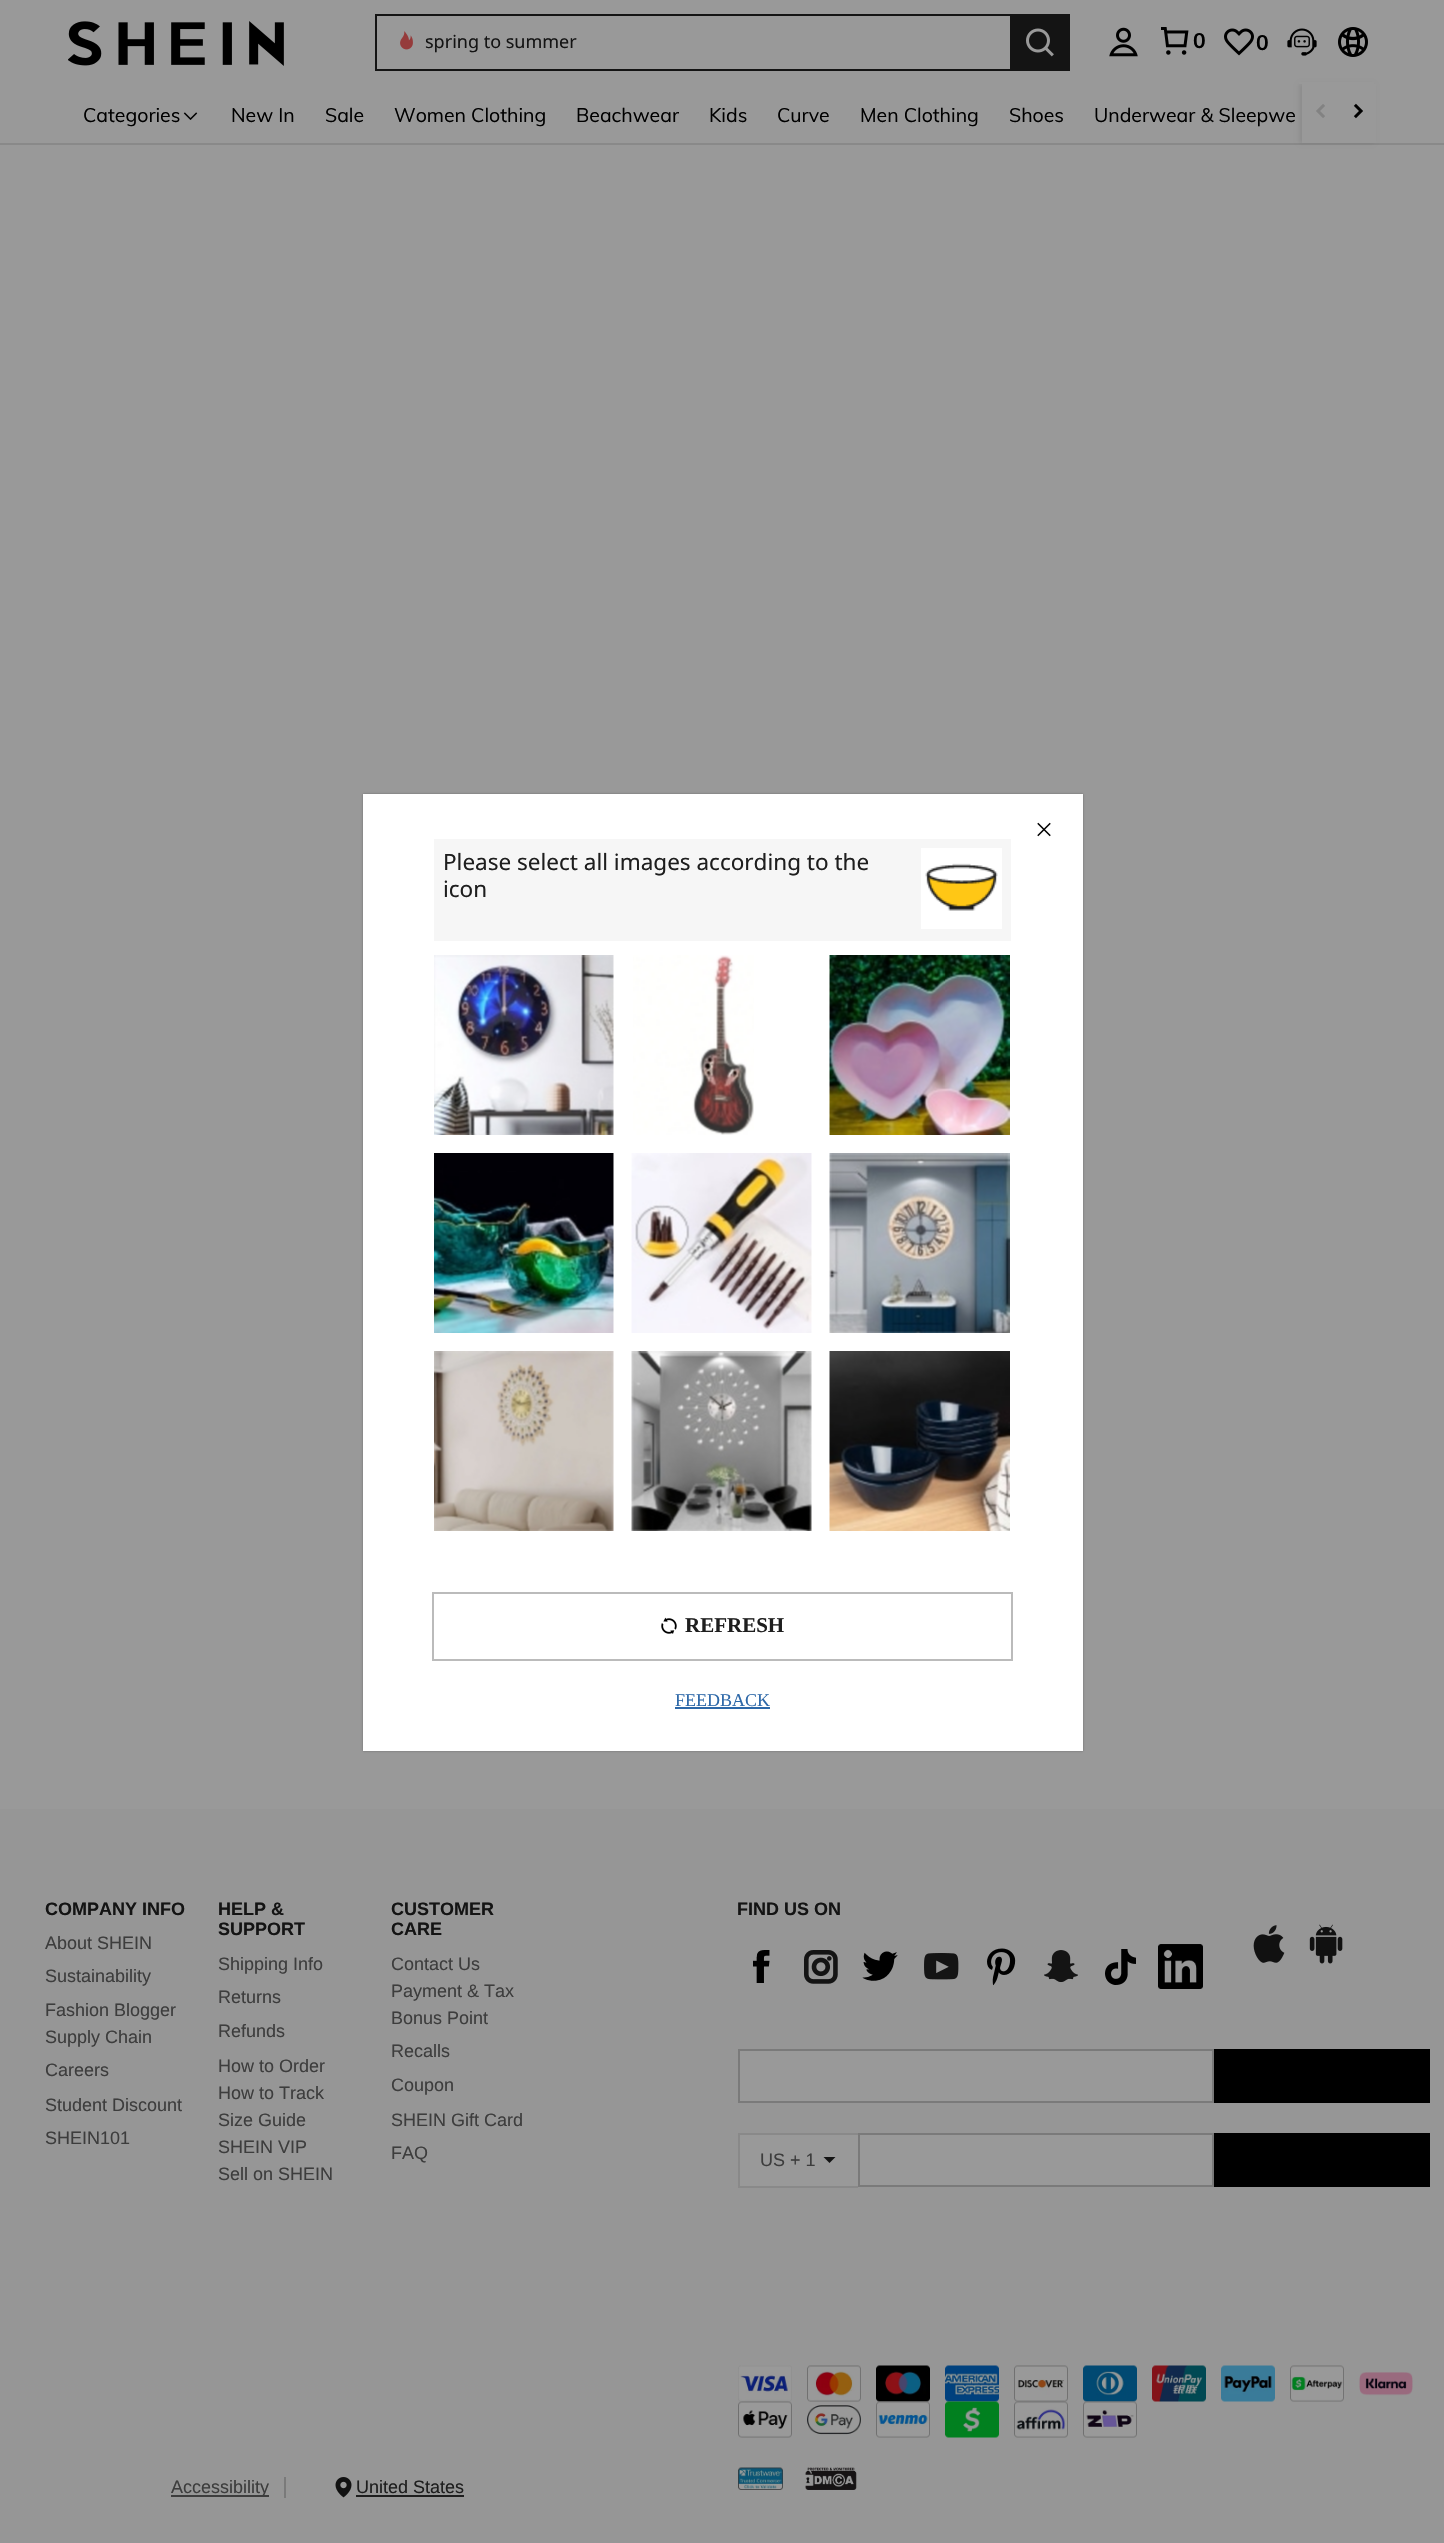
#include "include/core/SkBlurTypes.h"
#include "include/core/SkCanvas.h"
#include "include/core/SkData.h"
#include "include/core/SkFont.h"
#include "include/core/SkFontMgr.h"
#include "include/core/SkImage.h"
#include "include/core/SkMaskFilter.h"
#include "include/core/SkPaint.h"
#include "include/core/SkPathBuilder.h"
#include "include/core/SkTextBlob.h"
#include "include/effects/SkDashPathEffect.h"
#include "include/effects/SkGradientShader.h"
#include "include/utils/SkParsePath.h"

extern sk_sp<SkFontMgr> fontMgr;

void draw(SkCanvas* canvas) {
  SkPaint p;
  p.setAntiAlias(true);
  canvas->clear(SkColorSetRGB(153, 153, 153));
  p.setColor(SkColorSetRGB(137, 137, 137));
  canvas->drawRect(SkRect::MakeLTRB(0, 143, 1444, 145), p);
  p.setColor(SkColorSetARGB(20, 0, 0, 0));
  p.setMaskFilter(SkMaskFilter::MakeBlur(kNormal_SkBlurStyle, 2));
  canvas->drawRect(SkRect::MakeLTRB(1299, 84, 1374, 143), p);
  p.setMaskFilter(nullptr);
  p.setColor(SkColorSetRGB(153, 153, 153));
  canvas->drawRect(SkRect::MakeLTRB(1299, 82, 1374, 84), p);
  canvas->drawImageRect(SkImages::DeferredFromEncodedData(SkData::MakeFromFileName("images/1.png")), SkRect::MakeLTRB(68, 21, 284, 66), SkSamplingOptions());
  p.setColor(SkColorSetRGB(20, 20, 20));
  canvas->drawRect(SkRect::MakeLTRB(375, 14, 1010, 16), p);
  canvas->drawRect(SkRect::MakeLTRB(375, 69, 1010, 71), p);
  canvas->drawRect(SkRect::MakeLTRB(375, 14, 377, 71), p);
  canvas->drawImageRect(SkImages::DeferredFromEncodedData(SkData::MakeFromFileName("images/2.png")), SkRect::MakeLTRB(400, 31, 413, 50), SkSamplingOptions());
  canvas->drawRect(SkRect::MakeLTRB(1010, 14, 1070, 71), p);
  canvas->drawImageRect(SkImages::DeferredFromEncodedData(SkData::MakeFromFileName("images/3.png")), SkRect::MakeLTRB(1026, 28, 1054, 57), SkSamplingOptions());
  canvas->drawImageRect(SkImages::DeferredFromEncodedData(SkData::MakeFromFileName("images/4.png")), SkRect::MakeLTRB(1109, 27, 1138, 57), SkSamplingOptions());
  canvas->drawImageRect(SkImages::DeferredFromEncodedData(SkData::MakeFromFileName("images/5.png")), SkRect::MakeLTRB(1161, 27, 1189, 55), SkSamplingOptions());
  canvas->drawImageRect(SkImages::DeferredFromEncodedData(SkData::MakeFromFileName("images/6.png")), SkRect::MakeLTRB(1224, 28, 1254, 56), SkSamplingOptions());
  canvas->drawImageRect(SkImages::DeferredFromEncodedData(SkData::MakeFromFileName("images/7.png")), SkRect::MakeLTRB(1287, 28, 1317, 56), SkSamplingOptions());
  canvas->drawImageRect(SkImages::DeferredFromEncodedData(SkData::MakeFromFileName("images/8.png")), SkRect::MakeLTRB(1338, 27, 1368, 57), SkSamplingOptions());
  canvas->drawImageRect(SkImages::DeferredFromEncodedData(SkData::MakeFromFileName("images/9.png")), SkRect::MakeLTRB(183, 112, 198, 120), SkSamplingOptions());
  p.setColor(SkColorSetRGB(153, 153, 153));
  canvas->drawRect(SkRect::MakeLTRB(1302, 84, 1376, 143), p);
  canvas->drawImageRect(SkImages::DeferredFromEncodedData(SkData::MakeFromFileName("images/10.png")), SkRect::MakeLTRB(1316, 104, 1325, 118), SkSamplingOptions());
  canvas->drawImageRect(SkImages::DeferredFromEncodedData(SkData::MakeFromFileName("images/11.png")), SkRect::MakeLTRB(1353, 103, 1363, 119), SkSamplingOptions());
  p.setColor(SkColorSetRGB(150, 150, 150));
  canvas->drawRect(SkRect::MakeLTRB(0, 1809, 1444, 2543), p);
  canvas->drawImageRect(SkImages::DeferredFromEncodedData(SkData::MakeFromFileName("images/12.png")), SkRect::MakeLTRB(753, 1950, 770, 1983), SkSamplingOptions());
  canvas->drawImageRect(SkImages::DeferredFromEncodedData(SkData::MakeFromFileName("images/13.png")), SkRect::MakeLTRB(804, 1950, 838, 1984), SkSamplingOptions());
  canvas->drawImageRect(SkImages::DeferredFromEncodedData(SkData::MakeFromFileName("images/14.png")), SkRect::MakeLTRB(862, 1951, 898, 1981), SkSamplingOptions());
  canvas->drawImageRect(SkImages::DeferredFromEncodedData(SkData::MakeFromFileName("images/15.png")), SkRect::MakeLTRB(924, 1953, 959, 1980), SkSamplingOptions());
  canvas->drawImageRect(SkImages::DeferredFromEncodedData(SkData::MakeFromFileName("images/16.png")), SkRect::MakeLTRB(987, 1948, 1016, 1986), SkSamplingOptions());
  canvas->drawImageRect(SkImages::DeferredFromEncodedData(SkData::MakeFromFileName("images/17.png")), SkRect::MakeLTRB(1044, 1950, 1078, 1983), SkSamplingOptions());
  canvas->drawImageRect(SkImages::DeferredFromEncodedData(SkData::MakeFromFileName("images/18.png")), SkRect::MakeLTRB(1105, 1949, 1136, 1985), SkSamplingOptions());
  canvas->drawImageRect(SkImages::DeferredFromEncodedData(SkData::MakeFromFileName("images/19.png")), SkRect::MakeLTRB(1158, 1944, 1203, 1989), SkSamplingOptions());
  canvas->drawImageRect(SkImages::DeferredFromEncodedData(SkData::MakeFromFileName("images/20.png")), SkRect::MakeLTRB(1253, 1925, 1285, 1963), SkSamplingOptions());
  canvas->drawImageRect(SkImages::DeferredFromEncodedData(SkData::MakeFromFileName("images/21.png")), SkRect::MakeLTRB(1309, 1924, 1343, 1964), SkSamplingOptions());
  p.setColor(SkColorSetRGB(153, 153, 153));
  canvas->drawRect(SkRect::MakeLTRB(739, 2050, 1213, 2102), p);
  p.setStyle(SkPaint::kStroke_Style);
  p.setStrokeWidth(2);
  p.setColor(SkColorSetRGB(122, 122, 122));
  canvas->drawRect(SkRect::MakeLTRB(739, 2050, 1213, 2102), p);
  p.setStyle(SkPaint::kFill_Style);
  p.setColor(SK_ColorBLACK);
  canvas->drawRect(SkRect::MakeLTRB(1214, 2049, 1430, 2103), p);
  p.setColor(SkColorSetRGB(153, 153, 153));
  canvas->drawRect(SkRect::MakeLTRB(740, 2135, 858, 2186), p);
  p.setColor(SkColorSetRGB(137, 137, 137));
  canvas->drawRect(SkRect::MakeLTRB(738, 2133, 858, 2135), p);
  canvas->drawRect(SkRect::MakeLTRB(738, 2186, 858, 2188), p);
  canvas->drawRect(SkRect::MakeLTRB(738, 2133, 740, 2187), p);
  p.setColor(SkColorSetRGB(20, 20, 20));
  canvas->drawPath(SkPathBuilder().moveTo(823.5f, 2157).lineTo(835.5f, 2157).lineTo(829.5f, 2163).close().detach(), p);
  p.setColor(SkColorSetRGB(153, 153, 153));
  canvas->drawRect(SkRect::MakeLTRB(859, 2134, 1213, 2186), p);
  p.setStyle(SkPaint::kStroke_Style);
  p.setColor(SkColorSetRGB(122, 122, 122));
  canvas->drawRect(SkRect::MakeLTRB(859, 2134, 1213, 2186), p);
  p.setStyle(SkPaint::kFill_Style);
  p.setColor(SK_ColorBLACK);
  canvas->drawRect(SkRect::MakeLTRB(1214, 2133, 1430, 2187), p);
  canvas->drawImageRect(SkImages::DeferredFromEncodedData(SkData::MakeFromFileName("images/22.png")), SkRect::MakeLTRB(738, 2365, 792, 2402), SkSamplingOptions());
  canvas->drawImageRect(SkImages::DeferredFromEncodedData(SkData::MakeFromFileName("images/23.png")), SkRect::MakeLTRB(807, 2365, 861, 2402), SkSamplingOptions());
  canvas->drawImageRect(SkImages::DeferredFromEncodedData(SkData::MakeFromFileName("images/24.png")), SkRect::MakeLTRB(876, 2365, 930, 2402), SkSamplingOptions());
  canvas->drawImageRect(SkImages::DeferredFromEncodedData(SkData::MakeFromFileName("images/25.png")), SkRect::MakeLTRB(945, 2365, 999, 2402), SkSamplingOptions());
  canvas->drawImageRect(SkImages::DeferredFromEncodedData(SkData::MakeFromFileName("images/26.png")), SkRect::MakeLTRB(1014, 2365, 1068, 2402), SkSamplingOptions());
  canvas->drawImageRect(SkImages::DeferredFromEncodedData(SkData::MakeFromFileName("images/27.png")), SkRect::MakeLTRB(1083, 2365, 1137, 2402), SkSamplingOptions());
  canvas->drawImageRect(SkImages::DeferredFromEncodedData(SkData::MakeFromFileName("images/28.png")), SkRect::MakeLTRB(1152, 2365, 1206, 2402), SkSamplingOptions());
  canvas->drawImageRect(SkImages::DeferredFromEncodedData(SkData::MakeFromFileName("images/29.png")), SkRect::MakeLTRB(1221, 2365, 1275, 2402), SkSamplingOptions());
  canvas->drawImageRect(SkImages::DeferredFromEncodedData(SkData::MakeFromFileName("images/30.png")), SkRect::MakeLTRB(1290, 2365, 1344, 2402), SkSamplingOptions());
  canvas->drawImageRect(SkImages::DeferredFromEncodedData(SkData::MakeFromFileName("images/31.png")), SkRect::MakeLTRB(1359, 2372, 1413, 2396), SkSamplingOptions());
  canvas->drawImageRect(SkImages::DeferredFromEncodedData(SkData::MakeFromFileName("images/32.png")), SkRect::MakeLTRB(738, 2401, 792, 2438), SkSamplingOptions());
  canvas->drawImageRect(SkImages::DeferredFromEncodedData(SkData::MakeFromFileName("images/33.png")), SkRect::MakeLTRB(807, 2405, 861, 2435), SkSamplingOptions());
  canvas->drawImageRect(SkImages::DeferredFromEncodedData(SkData::MakeFromFileName("images/34.png")), SkRect::MakeLTRB(876, 2401, 930, 2438), SkSamplingOptions());
  canvas->drawImageRect(SkImages::DeferredFromEncodedData(SkData::MakeFromFileName("images/35.png")), SkRect::MakeLTRB(945, 2401, 999, 2438), SkSamplingOptions());
  canvas->drawImageRect(SkImages::DeferredFromEncodedData(SkData::MakeFromFileName("images/36.png")), SkRect::MakeLTRB(1014, 2401, 1068, 2438), SkSamplingOptions());
  canvas->drawImageRect(SkImages::DeferredFromEncodedData(SkData::MakeFromFileName("images/37.png")), SkRect::MakeLTRB(1083, 2401, 1137, 2438), SkSamplingOptions());
  p.setColor(SkColorSetRGB(122, 122, 122));
  canvas->drawRect(SkRect::MakeLTRB(284, 2477, 286, 2498), p);
  p.setColor(SkColorSetRGB(61, 61, 61));
  canvas->drawRect(SkRect::MakeLTRB(171, 2495, 269, 2497), p);
  canvas->drawImageRect(SkImages::DeferredFromEncodedData(SkData::MakeFromFileName("images/38.png")), SkRect::MakeLTRB(335, 2477, 352, 2498), SkSamplingOptions());
  p.setColor(SkColorSetRGB(30, 30, 30));
  canvas->drawRect(SkRect::MakeLTRB(356, 2495, 464, 2497), p);
  canvas->drawImageRect(SkImages::DeferredFromEncodedData(SkData::MakeFromFileName("images/39.png")), SkRect::MakeLTRB(738, 2467, 783, 2490), SkSamplingOptions());
  canvas->drawImageRect(SkImages::DeferredFromEncodedData(SkData::MakeFromFileName("images/40.png")), SkRect::MakeLTRB(805, 2467, 857, 2490), SkSamplingOptions());
  p.setColor(SkColorSetARGB(77, 0, 0, 0));
  p.setMaskFilter(SkMaskFilter::MakeBlur(kNormal_SkBlurStyle, 1));
  canvas->drawRect(SkRect::MakeLTRB(363, 794, 1083, 1751), p);
  p.setMaskFilter(nullptr);
  p.setColor(SK_ColorWHITE);
  canvas->drawRect(SkRect::MakeLTRB(363, 794, 1083, 1751), p);
  canvas->drawImageRect(SkImages::DeferredFromEncodedData(SkData::MakeFromFileName("images/41.png")), SkRect::MakeLTRB(1037, 822, 1051, 837), SkSamplingOptions());
  p.setColor(SkColorSetRGB(246, 246, 246));
  canvas->drawRect(SkRect::MakeLTRB(434, 839, 1011, 941), p);
  p.setColor(SK_ColorWHITE);
  canvas->drawRect(SkRect::MakeLTRB(921, 848, 1002, 929), p);
  canvas->drawImageRect(SkImages::DeferredFromEncodedData(SkData::MakeFromFileName("images/42.png")), SkRect::MakeLTRB(925, 863, 998, 911), SkSamplingOptions());
  canvas->drawImageRect(SkImages::DeferredFromEncodedData(SkData::MakeFromFileName("images/43.png")), SkRect::MakeLTRB(434, 955, 614, 1135), SkSamplingOptions());
  canvas->drawImageRect(SkImages::DeferredFromEncodedData(SkData::MakeFromFileName("images/44.png")), SkRect::MakeLTRB(633, 955, 754, 1135), SkSamplingOptions());
  canvas->drawImageRect(SkImages::DeferredFromEncodedData(SkData::MakeFromFileName("images/45.png")), SkRect::MakeLTRB(829, 955, 1010, 1135), SkSamplingOptions());
  canvas->drawImageRect(SkImages::DeferredFromEncodedData(SkData::MakeFromFileName("images/46.png")), SkRect::MakeLTRB(434, 1153, 614, 1333), SkSamplingOptions());
  canvas->drawImageRect(SkImages::DeferredFromEncodedData(SkData::MakeFromFileName("images/47.png")), SkRect::MakeLTRB(631, 1153, 812, 1333), SkSamplingOptions());
  canvas->drawImageRect(SkImages::DeferredFromEncodedData(SkData::MakeFromFileName("images/48.png")), SkRect::MakeLTRB(829, 1153, 1010, 1333), SkSamplingOptions());
  canvas->drawImageRect(SkImages::DeferredFromEncodedData(SkData::MakeFromFileName("images/49.png")), SkRect::MakeLTRB(434, 1351, 614, 1531), SkSamplingOptions());
  canvas->drawImageRect(SkImages::DeferredFromEncodedData(SkData::MakeFromFileName("images/50.png")), SkRect::MakeLTRB(631, 1351, 812, 1531), SkSamplingOptions());
  canvas->drawImageRect(SkImages::DeferredFromEncodedData(SkData::MakeFromFileName("images/51.png")), SkRect::MakeLTRB(829, 1351, 1010, 1531), SkSamplingOptions());
  p.setStyle(SkPaint::kStroke_Style);
  p.setColor(SkColorSetRGB(187, 187, 187));
  canvas->drawRect(SkRect::MakeLTRB(433, 1593, 1012, 1660), p);
  canvas->drawImageRect(SkImages::DeferredFromEncodedData(SkData::MakeFromFileName("images/52.png")), SkRect::MakeLTRB(661, 1617, 677, 1634), SkSamplingOptions());
  p.setStyle(SkPaint::kFill_Style);
  p.setColor(SkColorSetRGB(45, 104, 168));
  canvas->drawRect(SkRect::MakeLTRB(675, 1707, 770, 1709), p);
  SkFont font1(fontMgr->matchFamilyStyle("Noto Sans", SkFontStyle::Normal()), 18);
  font1.setSubpixel(true);
  p.setColor(SkColorSetRGB(20, 20, 20));
  canvas->drawString("spring to summer", 425, 48, font1, p);
  SkFont font2(fontMgr->matchFamilyStyle("Muli", SkFontStyle::Bold()), 21);
  font2.setSubpixel(true);
  p.setColor(SK_ColorBLACK);
  canvas->drawString("0", 1193, 48, font2, p);
  canvas->drawString("0", 1256, 50, font2, p);
  SkFont font3(fontMgr->matchFamilyStyle("Muli", SkFontStyle::Normal()), 19.5f);
  font3.setSubpixel(true);
  canvas->drawString("Categories", 83, 122, font3, p);
  canvas->drawString("New In", 231, 122, font3, p);
  canvas->drawString("Sale", 325, 122, font3, p);
  canvas->drawString("Women Clothing", 394, 122, font3, p);
  canvas->drawString("Beachwear", 576, 122, font3, p);
  canvas->drawString("Kids", 709, 122, font3, p);
  canvas->drawString("Curve", 777, 122, font3, p);
  canvas->drawString("Men Clothing", 860, 122, font3, p);
  canvas->drawString("Shoes", 1009, 122, font3, p);
  canvas->drawString("Underwear & Sleepwe", 1094, 122, font3, p);
  SkFont font4(fontMgr->matchFamilyStyle("Liberation Sans", SkFontStyle::Bold()), 18);
  font4.setSubpixel(true);
  p.setColor(SkColorSetRGB(20, 20, 20));
  canvas->drawString("COMPANY INFO", 45, 1915, font4, p);
  SkFont font5(fontMgr->matchFamilyStyle("Liberation Sans", SkFontStyle::Normal()), 18);
  font5.setSubpixel(true);
  p.setColor(SkColorSetRGB(61, 61, 61));
  canvas->drawString("About SHEIN", 45, 1949, font5, p);
  canvas->drawString("Sustainability", 45, 1982, font5, p);
  canvas->drawString("Fashion Blogger", 45, 2016, font5, p);
  canvas->drawString("Supply Chain", 45, 2043, font5, p);
  canvas->drawString("Careers", 45, 2076, font5, p);
  canvas->drawString("Student Discount", 45, 2111, font5, p);
  canvas->drawString("SHEIN101", 45, 2144, font5, p);
  p.setColor(SkColorSetRGB(20, 20, 20));
  canvas->drawString("HELP &", 218, 1915, font4, p);
  canvas->drawString("SUPPORT", 218, 1935, font4, p);
  p.setColor(SkColorSetRGB(61, 61, 61));
  canvas->drawString("Shipping Info", 218, 1970, font5, p);
  canvas->drawString("Returns", 218, 2003, font5, p);
  canvas->drawString("Refunds", 218, 2037, font5, p);
  canvas->drawString("How to Order", 218, 2072, font5, p);
  canvas->drawString("How to Track", 218, 2099, font5, p);
  canvas->drawString("Size Guide", 218, 2126, font5, p);
  canvas->drawString("SHEIN VIP", 218, 2153, font5, p);
  canvas->drawString("Sell on SHEIN", 218, 2180, font5, p);
  p.setColor(SkColorSetRGB(20, 20, 20));
  canvas->drawString("CUSTOMER", 391, 1915, font4, p);
  canvas->drawString("CARE", 391, 1935, font4, p);
  p.setColor(SkColorSetRGB(61, 61, 61));
  canvas->drawString("Contact Us", 391, 1970, font5, p);
  canvas->drawString("Payment & Tax", 391, 1997, font5, p);
  canvas->drawString("Bonus Point", 391, 2024, font5, p);
  canvas->drawString("Recalls", 391, 2057, font5, p);
  canvas->drawString("Coupon", 391, 2091, font5, p);
  canvas->drawString("SHEIN Gift Card", 391, 2126, font5, p);
  canvas->drawString("FAQ", 391, 2159, font5, p);
  p.setColor(SkColorSetRGB(20, 20, 20));
  canvas->drawString("FIND US ON", 737, 1915, font4, p);
  p.setColor(SkColorSetRGB(61, 61, 61));
  canvas->drawString("US + 1", 760, 2166, font5, p);
  canvas->drawString("Accessibility", 171, 2493, font5, p);
  p.setColor(SkColorSetRGB(30, 30, 30));
  canvas->drawString("United States", 356, 2493, font5, p);
  SkFont font6(fontMgr->matchFamilyStyle("Noto Sans", SkFontStyle::Normal()), 22.5f);
  font6.setSubpixel(true);
  canvas->drawString("Please select all images according to the", 443, 870, font6, p);
  canvas->drawString("icon", 443, 897, font6, p);
  SkFont font7(fontMgr->matchFamilyStyle("Liberation Serif", SkFontStyle::Bold()), 21);
  font7.setSubpixel(true);
  canvas->drawString("REFRESH", 685, 1632, font7, p);
  SkFont font8(fontMgr->matchFamilyStyle("Liberation Serif", SkFontStyle::Normal()), 18);
  font8.setSubpixel(true);
  p.setColor(SkColorSetRGB(45, 104, 168));
  canvas->drawString("FEEDBACK", 675, 1706, font8, p);
}
